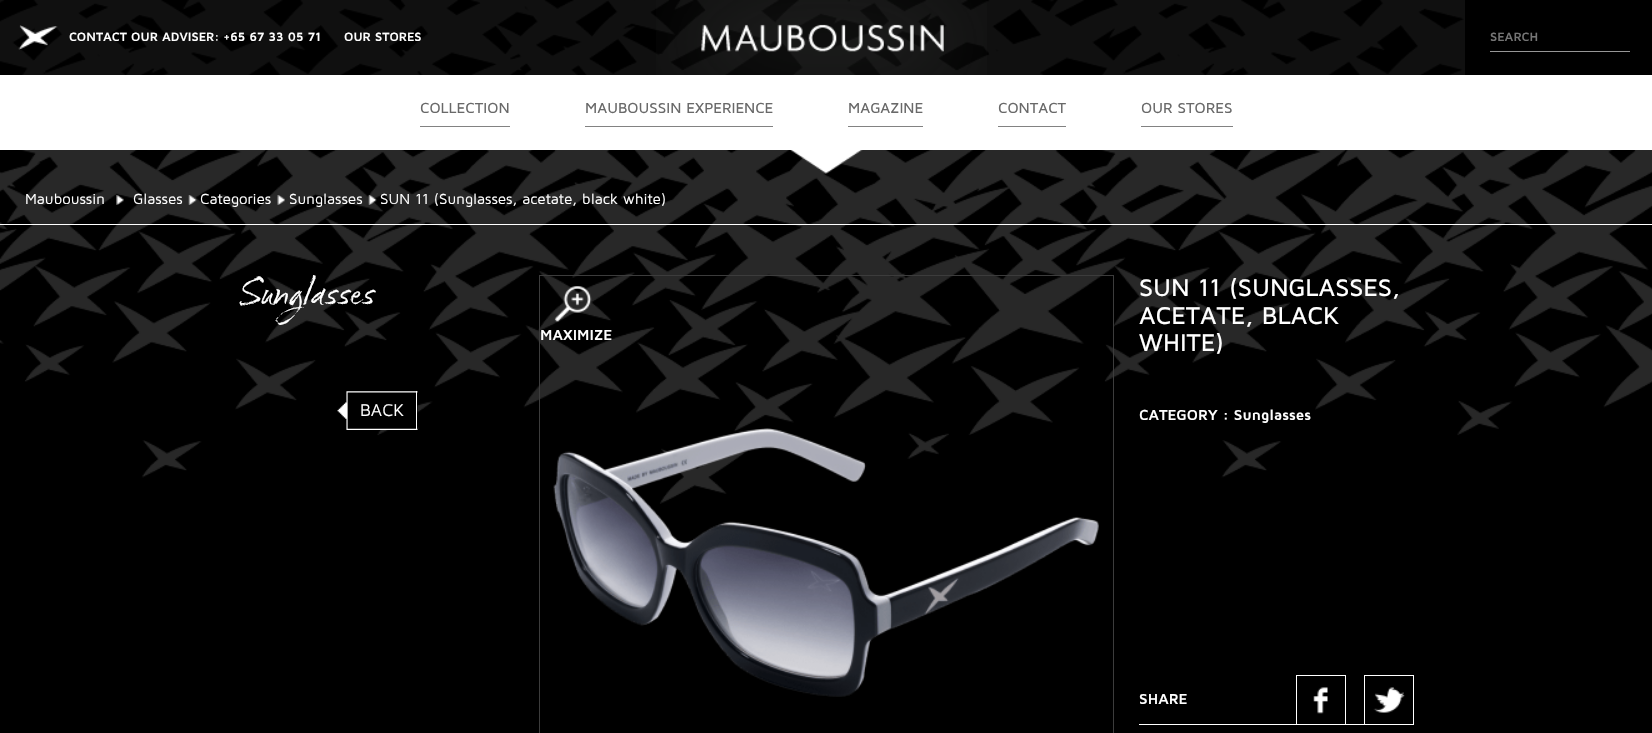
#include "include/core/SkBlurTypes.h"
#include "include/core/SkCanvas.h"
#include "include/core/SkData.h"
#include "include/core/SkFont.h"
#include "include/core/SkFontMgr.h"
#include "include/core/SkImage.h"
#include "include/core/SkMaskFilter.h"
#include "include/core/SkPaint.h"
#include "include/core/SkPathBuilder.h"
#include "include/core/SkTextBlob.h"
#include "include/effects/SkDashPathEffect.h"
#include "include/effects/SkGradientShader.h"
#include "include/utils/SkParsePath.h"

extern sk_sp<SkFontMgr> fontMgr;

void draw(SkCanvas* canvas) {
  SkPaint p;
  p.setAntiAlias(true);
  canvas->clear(SK_ColorBLACK);
  canvas->drawImageRect(SkImages::DeferredFromEncodedData(SkData::MakeFromFileName("images/1.png")), SkRect::MakeLTRB(0, 0, 1652, 504), SkSamplingOptions());
  p.setColor(SkColorSetARGB(153, 0, 0, 0));
  canvas->drawRect(SkRect::MakeLTRB(0, 0, 1465, 75), p);
  canvas->drawImageRect(SkImages::DeferredFromEncodedData(SkData::MakeFromFileName("images/2.png")), SkRect::MakeLTRB(18, 25, 58, 50), SkSamplingOptions());
  canvas->drawImageRect(SkImages::DeferredFromEncodedData(SkData::MakeFromFileName("images/3.png")), SkRect::MakeLTRB(656, 0, 987, 75), SkSamplingOptions());
  p.setColor(SK_ColorBLACK);
  canvas->drawRect(SkRect::MakeLTRB(1465, 0, 1652, 75), p);
  p.setColor(SkColorSetRGB(150, 150, 150));
  canvas->drawRect(SkRect::MakeLTRB(1490, 51, 1630, 52), p);
  p.setColor(SK_ColorWHITE);
  canvas->drawRect(SkRect::MakeLTRB(0, 75, 1652, 150), p);
  p.setColor(SkColorSetRGB(130, 130, 130));
  canvas->drawRect(SkRect::MakeLTRB(420, 126, 510, 127), p);
  canvas->drawRect(SkRect::MakeLTRB(585, 126, 773, 127), p);
  canvas->drawRect(SkRect::MakeLTRB(848, 126, 923, 127), p);
  canvas->drawRect(SkRect::MakeLTRB(998, 126, 1066, 127), p);
  canvas->drawRect(SkRect::MakeLTRB(1141, 126, 1233, 127), p);
  canvas->drawImageRect(SkImages::DeferredFromEncodedData(SkData::MakeFromFileName("images/4.png")), SkRect::MakeLTRB(790, 150, 863, 174), SkSamplingOptions());
  canvas->drawImageRect(SkImages::DeferredFromEncodedData(SkData::MakeFromFileName("images/5.png")), SkRect::MakeLTRB(116, 195, 124, 205), SkSamplingOptions());
  canvas->drawImageRect(SkImages::DeferredFromEncodedData(SkData::MakeFromFileName("images/6.png")), SkRect::MakeLTRB(188, 195, 197, 205), SkSamplingOptions());
  canvas->drawImageRect(SkImages::DeferredFromEncodedData(SkData::MakeFromFileName("images/7.png")), SkRect::MakeLTRB(277, 195, 285, 205), SkSamplingOptions());
  canvas->drawImageRect(SkImages::DeferredFromEncodedData(SkData::MakeFromFileName("images/8.png")), SkRect::MakeLTRB(368, 195, 377, 205), SkSamplingOptions());
  p.setColor(SK_ColorWHITE);
  canvas->drawRect(SkRect::MakeLTRB(0, 224, 1652, 225), p);
  canvas->drawImageRect(SkImages::DeferredFromEncodedData(SkData::MakeFromFileName("images/9.png")), SkRect::MakeLTRB(337, 391, 418, 430), SkSamplingOptions());
  canvas->drawRect(SkRect::MakeLTRB(416, 391, 417, 430), p);
  p.setStyle(SkPaint::kStroke_Style);
  p.setStrokeWidth(1);
  p.setColor(SkColorSetRGB(60, 60, 60));
  canvas->drawRect(SkRect::MakeLTRB(539.5f, 275.5f, 1113.5f, 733.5f), p);
  canvas->drawImageRect(SkImages::DeferredFromEncodedData(SkData::MakeFromFileName("images/10.png")), SkRect::MakeLTRB(553, 428, 1099, 697), SkSamplingOptions());
  canvas->drawImageRect(SkImages::DeferredFromEncodedData(SkData::MakeFromFileName("images/11.png")), SkRect::MakeLTRB(554, 286, 592, 322), SkSamplingOptions());
  p.setStyle(SkPaint::kFill_Style);
  p.setColor(SK_ColorWHITE);
  canvas->drawRect(SkRect::MakeLTRB(1139, 724, 1414, 725), p);
  canvas->drawImageRect(SkImages::DeferredFromEncodedData(SkData::MakeFromFileName("images/12.png")), SkRect::MakeLTRB(1313, 687, 1328, 714), SkSamplingOptions());
  canvas->drawRect(SkRect::MakeLTRB(1296, 675, 1346, 676), p);
  canvas->drawRect(SkRect::MakeLTRB(1345, 675, 1346, 724), p);
  canvas->drawRect(SkRect::MakeLTRB(1296, 675, 1297, 724), p);
  canvas->drawImageRect(SkImages::DeferredFromEncodedData(SkData::MakeFromFileName("images/13.png")), SkRect::MakeLTRB(1373, 687, 1405, 713), SkSamplingOptions());
  canvas->drawRect(SkRect::MakeLTRB(1364, 675, 1414, 676), p);
  canvas->drawRect(SkRect::MakeLTRB(1413, 675, 1414, 724), p);
  canvas->drawRect(SkRect::MakeLTRB(1364, 675, 1365, 724), p);
  SkFont font1(fontMgr->matchFamilyStyle("Maven Pro", SkFontStyle::Bold()), 12.5f);
  font1.setSubpixel(true);
  canvas->drawString("CONTACT OUR ADVISER: +65 67 33 05 71", 69, 41, font1, p);
  canvas->drawString("OUR STORES", 344, 41, font1, p);
  p.setColor(SkColorSetRGB(117, 117, 117));
  canvas->drawString("SEARCH", 1490, 41, font1, p);
  SkFont font2(fontMgr->matchFamilyStyle("Maven Pro", SkFontStyle(500, SkFontStyle::kNormal_Width, SkFontStyle::kUpright_Slant)), 15);
  font2.setSubpixel(true);
  p.setColor(SkColorSetRGB(105, 105, 105));
  canvas->drawString("COLLECTION", 420, 113, font2, p);
  canvas->drawString("MAUBOUSSIN EXPERIENCE", 585, 113, font2, p);
  canvas->drawString("MAGAZINE", 848, 113, font2, p);
  canvas->drawString("CONTACT", 998, 113, font2, p);
  canvas->drawString("OUR STORES", 1141, 113, font2, p);
  SkFont font3(fontMgr->matchFamilyStyle("Maven Pro", SkFontStyle::Normal()), 15);
  font3.setSubpixel(true);
  p.setColor(SK_ColorWHITE);
  canvas->drawString("Mauboussin", 25, 204, font3, p);
  canvas->drawString("Glasses", 133, 204, font3, p);
  canvas->drawString("Categories", 200, 204, font3, p);
  canvas->drawString("Sunglasses", 289, 204, font3, p);
  canvas->drawString("SUN 11 (Sunglasses, acetate, black white)", 380, 204, font3, p);
  SkFont font4(fontMgr->matchFamilyStyle("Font", SkFontStyle::Normal()), 40);
  font4.setSubpixel(true);
  canvas->drawString("Sunglasses", 239, 303, font4, p);
  SkFont font5(fontMgr->matchFamilyStyle("Maven Pro", SkFontStyle::Normal()), 17.5f);
  font5.setSubpixel(true);
  canvas->drawString("BACK", 360, 416, font5, p);
  SkFont font6(fontMgr->matchFamilyStyle("Maven Pro", SkFontStyle::Bold()), 15);
  font6.setSubpixel(true);
  canvas->drawString("MAXIMIZE", 540, 340, font6, p);
  SkFont font7(fontMgr->matchFamilyStyle("Maven Pro", SkFontStyle(500, SkFontStyle::kNormal_Width, SkFontStyle::kUpright_Slant)), 25);
  font7.setSubpixel(true);
  canvas->drawString("SUN 11 (SUNGLASSES,", 1139, 296, font7, p);
  canvas->drawString("ACETATE, BLACK", 1139, 324, font7, p);
  canvas->drawString("WHITE)", 1139, 351, font7, p);
  canvas->drawString("CATEGORY : Sunglasses", 1139, 420, font6, p);
  canvas->drawString("SHARE", 1139, 704, font6, p);
}
